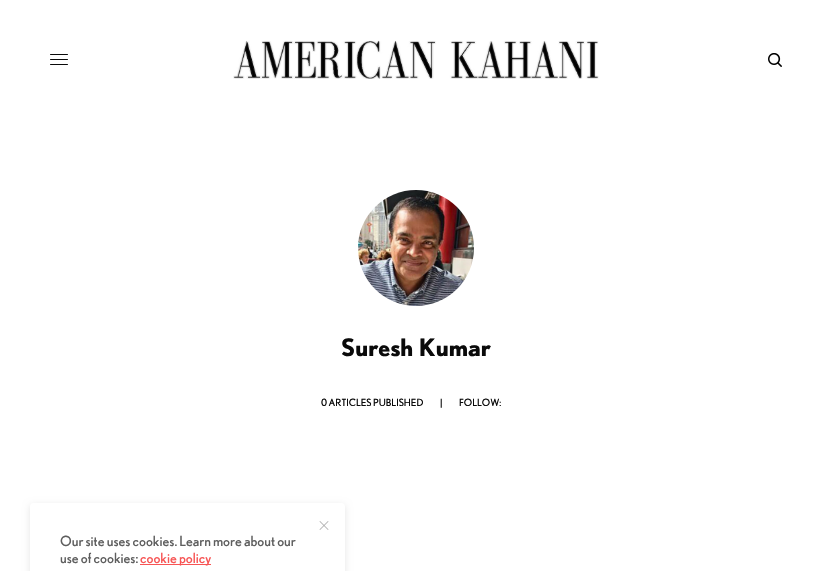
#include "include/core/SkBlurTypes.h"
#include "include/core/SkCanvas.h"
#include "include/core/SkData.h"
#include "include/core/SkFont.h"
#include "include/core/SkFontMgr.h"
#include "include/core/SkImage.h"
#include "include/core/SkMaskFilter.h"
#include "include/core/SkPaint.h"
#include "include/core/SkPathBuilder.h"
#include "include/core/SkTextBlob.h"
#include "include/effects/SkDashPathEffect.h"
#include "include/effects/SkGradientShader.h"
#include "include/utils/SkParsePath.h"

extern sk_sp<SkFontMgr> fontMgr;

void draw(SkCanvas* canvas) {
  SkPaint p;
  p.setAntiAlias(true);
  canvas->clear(SK_ColorWHITE);
  p.setColor(SkColorSetRGB(10, 10, 10));
  canvas->drawRoundRect(SkRect::MakeLTRB(50, 54, 68, 55), 0.5f, 0.5f, p);
  canvas->drawRoundRect(SkRect::MakeLTRB(50, 59, 68, 60), 0.5f, 0.5f, p);
  canvas->drawRoundRect(SkRect::MakeLTRB(50, 64, 68, 65), 0.5f, 0.5f, p);
  canvas->drawImageRect(SkImages::DeferredFromEncodedData(SkData::MakeFromFileName("images/1.png")), SkRect::MakeLTRB(233, 40, 599, 79), SkSamplingOptions());
  canvas->drawImageRect(SkImages::DeferredFromEncodedData(SkData::MakeFromFileName("images/2.png")), SkRect::MakeLTRB(768, 53, 782, 67), SkSamplingOptions());
  canvas->drawImageRect(SkImages::DeferredFromEncodedData(SkData::MakeFromFileName("images/3.png")), SkRect::MakeLTRB(358, 190, 474, 306), SkSamplingOptions());
  canvas->save();
  canvas->clipPath(SkPathBuilder(SkPathFillType::kEvenOdd).moveTo(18, 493).lineTo(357, 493).lineTo(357, 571).lineTo(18, 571).close().moveTo(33, 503).lineTo(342, 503).cubicTo(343.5f, 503, 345, 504.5f, 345, 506).lineTo(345, 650).cubicTo(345, 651.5f, 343.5f, 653, 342, 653).lineTo(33, 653).cubicTo(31.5f, 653, 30, 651.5f, 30, 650).lineTo(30, 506).cubicTo(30, 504.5f, 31.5f, 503, 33, 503).close().detach(), true);
  p.setColor(SkColorSetARGB(26, 0, 0, 0));
  p.setMaskFilter(SkMaskFilter::MakeBlur(kNormal_SkBlurStyle, 3.5f));
  canvas->drawRoundRect(SkRect::MakeLTRB(30, 505, 345, 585), 3, 3, p);
  p.setMaskFilter(nullptr);
  canvas->restore();
  p.setColor(SkColorSetRGB(163, 163, 163));
  canvas->drawPath(SkPathBuilder().moveTo(320, 521).lineTo(328.5f, 529.5f).lineTo(328, 530).lineTo(319.5f, 521.5f).close().detach(), p);
  canvas->drawPath(SkPathBuilder().moveTo(319.5f, 529.5f).lineTo(328, 521).lineTo(328.5f, 521.5f).lineTo(320, 530).close().detach(), p);
  p.setColor(SkColorSetRGB(247, 84, 84));
  canvas->drawRect(SkRect::MakeLTRB(140, 564, 211, 565), p);
  SkFont font1(fontMgr->matchFamilyStyle("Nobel", SkFontStyle::Bold()), 24);
  font1.setSubpixel(true);
  p.setColor(SkColorSetRGB(10, 10, 10));
  canvas->drawString("Suresh Kumar", 341, 356, font1, p);
  SkFont font2(fontMgr->matchFamilyStyle("Nobel", SkFontStyle::Normal()), 10);
  font2.setSubpixel(true);
  canvas->drawString("0 ARTICLES PUBLISHED", 321, 406, font2, p);
  canvas->drawString("|", 440, 406, font2, p);
  canvas->drawString("FOLLOW:", 459, 406, font2, p);
  SkFont font3(fontMgr->matchFamilyStyle("Nobel", SkFontStyle::Normal()), 14);
  font3.setSubpixel(true);
  p.setColor(SkColorSetRGB(94, 94, 94));
  canvas->drawString("Our site uses cookies. Learn more about our", 60, 546, font3, p);
  canvas->drawString("use of cookies:", 60, 563, font3, p);
  p.setColor(SkColorSetRGB(247, 84, 84));
  canvas->drawString("cookie policy", 140, 563, font3, p);
}
